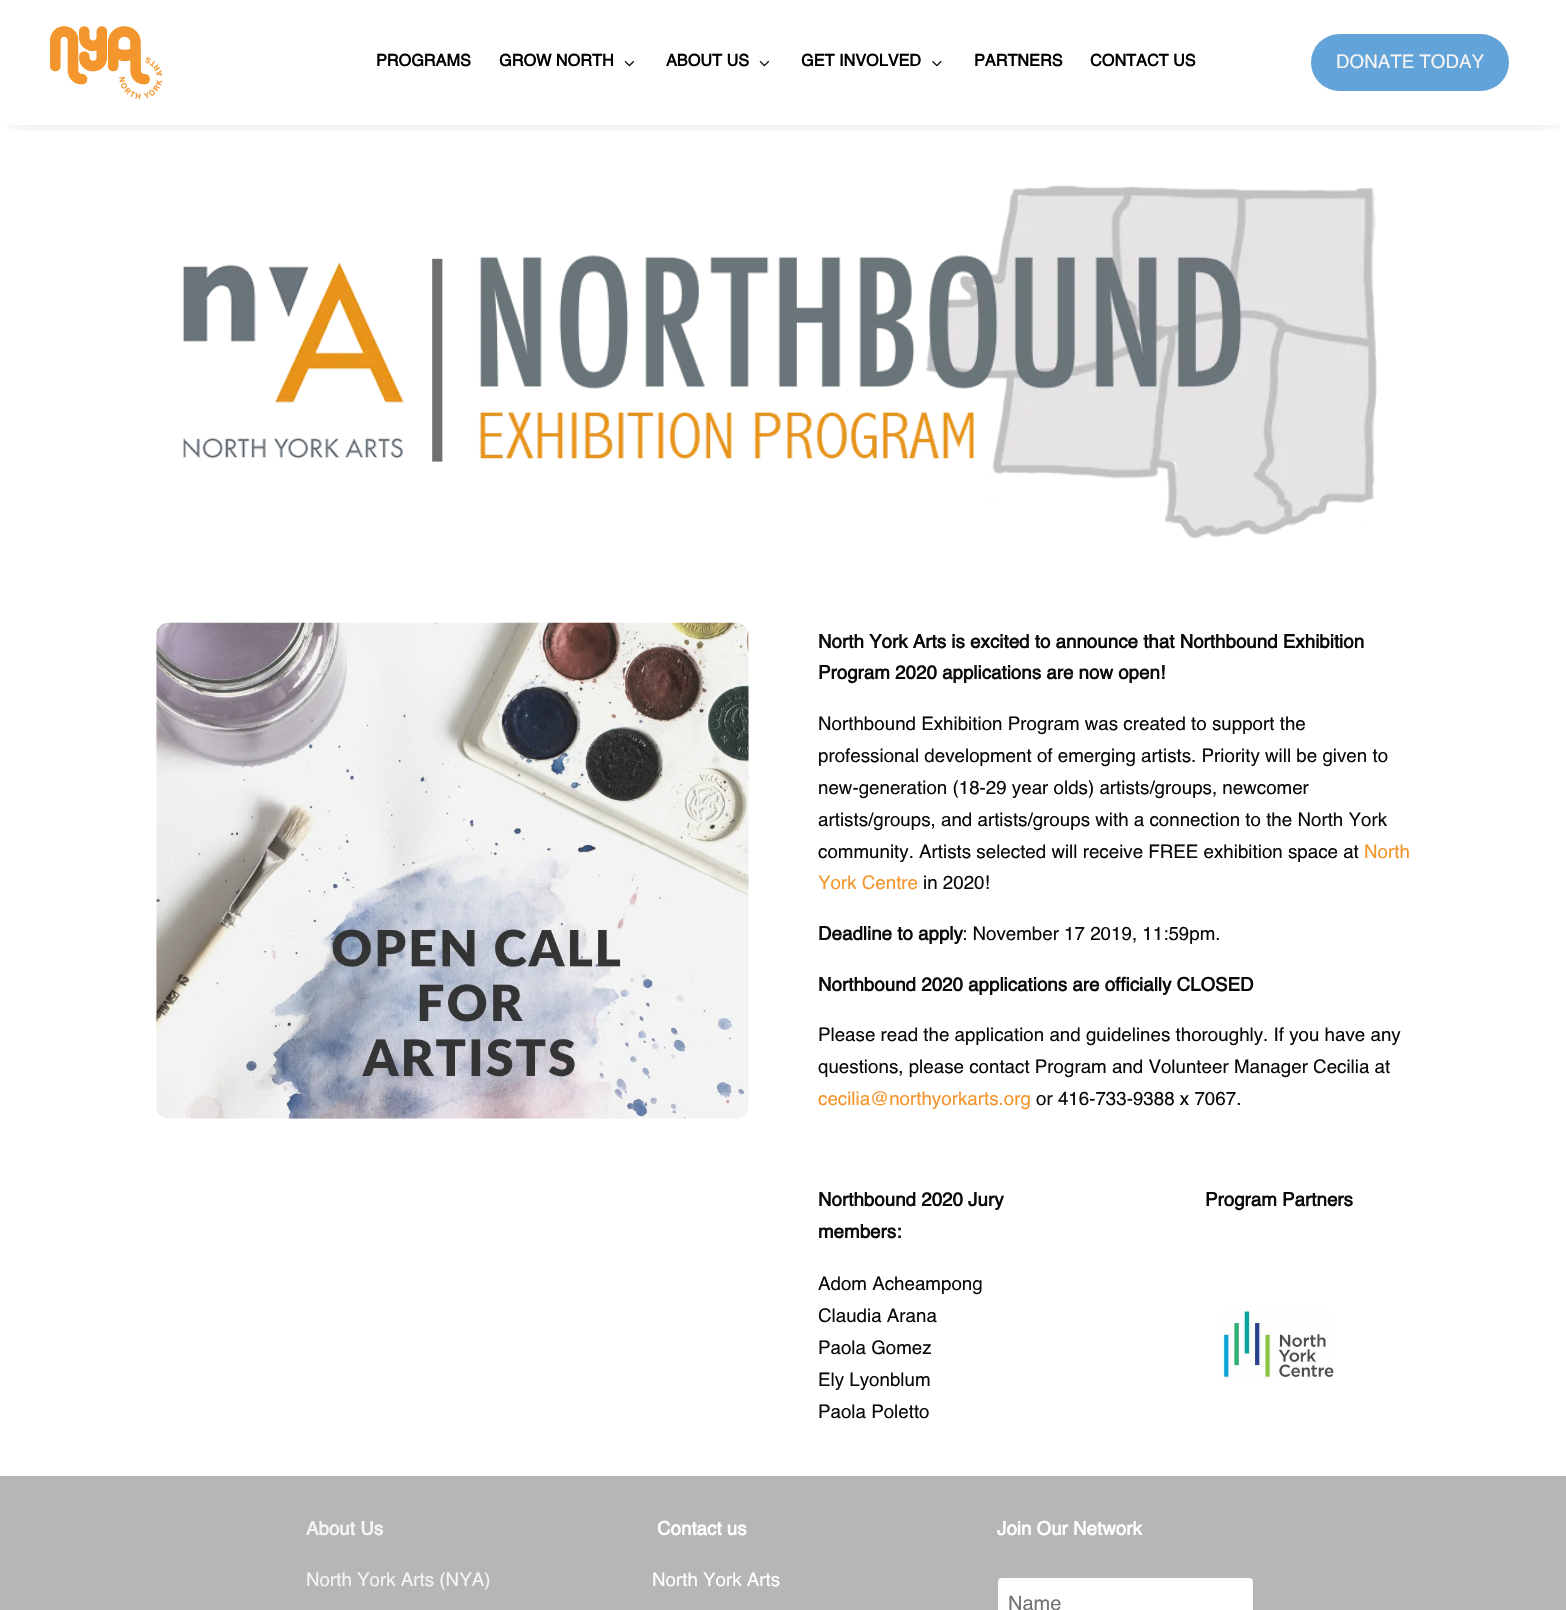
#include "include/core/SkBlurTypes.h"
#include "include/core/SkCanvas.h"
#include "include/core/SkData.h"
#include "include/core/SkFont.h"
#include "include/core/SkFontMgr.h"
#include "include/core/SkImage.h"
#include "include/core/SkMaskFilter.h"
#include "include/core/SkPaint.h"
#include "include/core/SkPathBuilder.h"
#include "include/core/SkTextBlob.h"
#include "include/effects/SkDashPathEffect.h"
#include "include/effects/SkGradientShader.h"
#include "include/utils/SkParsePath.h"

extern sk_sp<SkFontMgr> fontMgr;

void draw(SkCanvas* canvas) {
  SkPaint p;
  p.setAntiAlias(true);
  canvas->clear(SK_ColorWHITE);
  canvas->save();
  canvas->clipRect(SkRect::MakeLTRB(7, 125, 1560, 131));
  p.setColor(SkColorSetARGB(77, 0, 0, 0));
  p.setMaskFilter(SkMaskFilter::MakeBlur(kNormal_SkBlurStyle, 11));
  canvas->drawRect(SkRect::MakeLTRB(8, 4, 1559, 114), p);
  p.setMaskFilter(nullptr);
  canvas->restore();
  canvas->drawImageRect(SkImages::DeferredFromEncodedData(SkData::MakeFromFileName("images/1.png")), SkRect::MakeLTRB(50, 26, 163, 99), SkSamplingOptions());
  canvas->drawImageRect(SkImages::DeferredFromEncodedData(SkData::MakeFromFileName("images/2.png")), SkRect::MakeLTRB(624, 61, 634, 67), SkSamplingOptions());
  canvas->drawImageRect(SkImages::DeferredFromEncodedData(SkData::MakeFromFileName("images/2.png")), SkRect::MakeLTRB(759, 61, 769, 67), SkSamplingOptions());
  canvas->drawImageRect(SkImages::DeferredFromEncodedData(SkData::MakeFromFileName("images/3.png")), SkRect::MakeLTRB(932, 61, 942, 67), SkSamplingOptions());
  p.setColor(SkColorSetRGB(98, 164, 217));
  canvas->drawRoundRect(SkRect::MakeLTRB(1311, 34, 1509, 91), 28.5f, 28.5f, p);
  canvas->drawImageRect(SkImages::DeferredFromEncodedData(SkData::MakeFromFileName("images/4.png")), SkRect::MakeLTRB(183, 185, 1377, 539), SkSamplingOptions());
  canvas->drawImageRect(SkImages::DeferredFromEncodedData(SkData::MakeFromFileName("images/5.png")), SkRect::MakeLTRB(156, 622, 749, 1119), SkSamplingOptions());
  canvas->drawImageRect(SkImages::DeferredFromEncodedData(SkData::MakeFromFileName("images/6.png")), SkRect::MakeLTRB(1222, 1310, 1334, 1379), SkSamplingOptions());
  p.setColor(SkColorSetRGB(182, 182, 182));
  canvas->drawRect(SkRect::MakeLTRB(0, 1476, 1566, 1610), p);
  p.setColor(SK_ColorWHITE);
  canvas->drawRoundRect(SkRect::MakeLTRB(998, 1578, 1253, 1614), 4, 4, p);
  SkFont font1(fontMgr->matchFamilyStyle("Helvetica", SkFontStyle::Bold()), 16.25f);
  font1.setSubpixel(true);
  p.setColor(SK_ColorBLACK);
  canvas->drawString("PROGRAMS", 376, 66, font1, p);
  canvas->drawString("GROW NORTH", 499, 66, font1, p);
  canvas->drawString("ABOUT US", 666, 66, font1, p);
  canvas->drawString("GET INVOLVED", 801, 66, font1, p);
  canvas->drawString("PARTNERS", 974, 66, font1, p);
  canvas->drawString("CONTACT US", 1090, 66, font1, p);
  SkFont font2(fontMgr->matchFamilyStyle("Helvetica", SkFontStyle::Normal()), 18.75f);
  font2.setSubpixel(true);
  p.setColor(SkColorSetRGB(244, 244, 244));
  canvas->drawString("DONATE TODAY", 1336, 68, font2, p);
  SkFont font3(fontMgr->matchFamilyStyle("Helvetica", SkFontStyle::Bold()), 18.75f);
  font3.setSubpixel(true);
  p.setColor(SkColorSetRGB(10, 10, 10));
  canvas->drawString("North York Arts is excited to announce that Northbound Exhibition", 818, 648, font3, p);
  canvas->drawString("Program 2020 applications are now open!", 818, 679, font3, p);
  canvas->drawString("Northbound Exhibition Program was created to support the", 818, 730, font2, p);
  canvas->drawString("professional development of emerging artists. Priority will be given to", 818, 762, font2, p);
  canvas->drawString("new-generation (18-29 year olds) artists/groups, newcomer", 818, 794, font2, p);
  canvas->drawString("artists/groups, and artists/groups with a connection to the North York", 818, 826, font2, p);
  canvas->drawString("community. Artists selected will receive FREE exhibition space at", 818, 858, font2, p);
  p.setColor(SkColorSetRGB(243, 149, 44));
  canvas->drawString("North", 1364, 858, font2, p);
  canvas->drawString("York Centre", 818, 889, font2, p);
  p.setColor(SkColorSetRGB(10, 10, 10));
  canvas->drawString("in 2020!", 923, 889, font2, p);
  canvas->drawString("Deadline to apply", 818, 940, font3, p);
  canvas->drawString(": November 17 2019, 11:59pm.", 962, 940, font2, p);
  canvas->drawString("Northbound 2020 applications are officially CLOSED", 818, 991, font3, p);
  canvas->drawString("Please read the application and guidelines thoroughly. If you have any", 818, 1041, font2, p);
  canvas->drawString("questions, please contact Program and Volunteer Manager Cecilia at", 818, 1073, font2, p);
  p.setColor(SkColorSetRGB(243, 149, 44));
  canvas->drawString("cecilia@northyorkarts.org", 818, 1105, font2, p);
  p.setColor(SkColorSetRGB(10, 10, 10));
  canvas->drawString("or 416-733-9388 x 7067.", 1036, 1105, font2, p);
  canvas->drawString("Northbound 2020 Jury", 818, 1206, font3, p);
  canvas->drawString("members:", 818, 1238, font3, p);
  canvas->drawString("Adom Acheampong", 818, 1290, font2, p);
  canvas->drawString("Claudia Arana", 818, 1322, font2, p);
  canvas->drawString("Paola Gomez", 818, 1354, font2, p);
  canvas->drawString("Ely Lyonblum", 818, 1386, font2, p);
  canvas->drawString("Paola Poletto", 818, 1418, font2, p);
  canvas->drawString("Program Partners", 1205, 1206, font3, p);
  p.setColor(SkColorSetRGB(244, 244, 244));
  canvas->drawString("About Us", 306, 1535, font3, p);
  canvas->drawString("North York Arts (NYA)", 306, 1586, font2, p);
  p.setColor(SK_ColorWHITE);
  canvas->drawString("Contact us", 657, 1535, font3, p);
  canvas->drawString("North York Arts", 652, 1586, font2, p);
  canvas->drawString("Join Our Network", 997, 1535, font3, p);
  SkFont font4(fontMgr->matchFamilyStyle("Helvetica", SkFontStyle::Normal()), 20);
  font4.setSubpixel(true);
  p.setColor(SkColorSetRGB(117, 117, 117));
  canvas->drawString("Name", 1008, 1610, font4, p);
}
